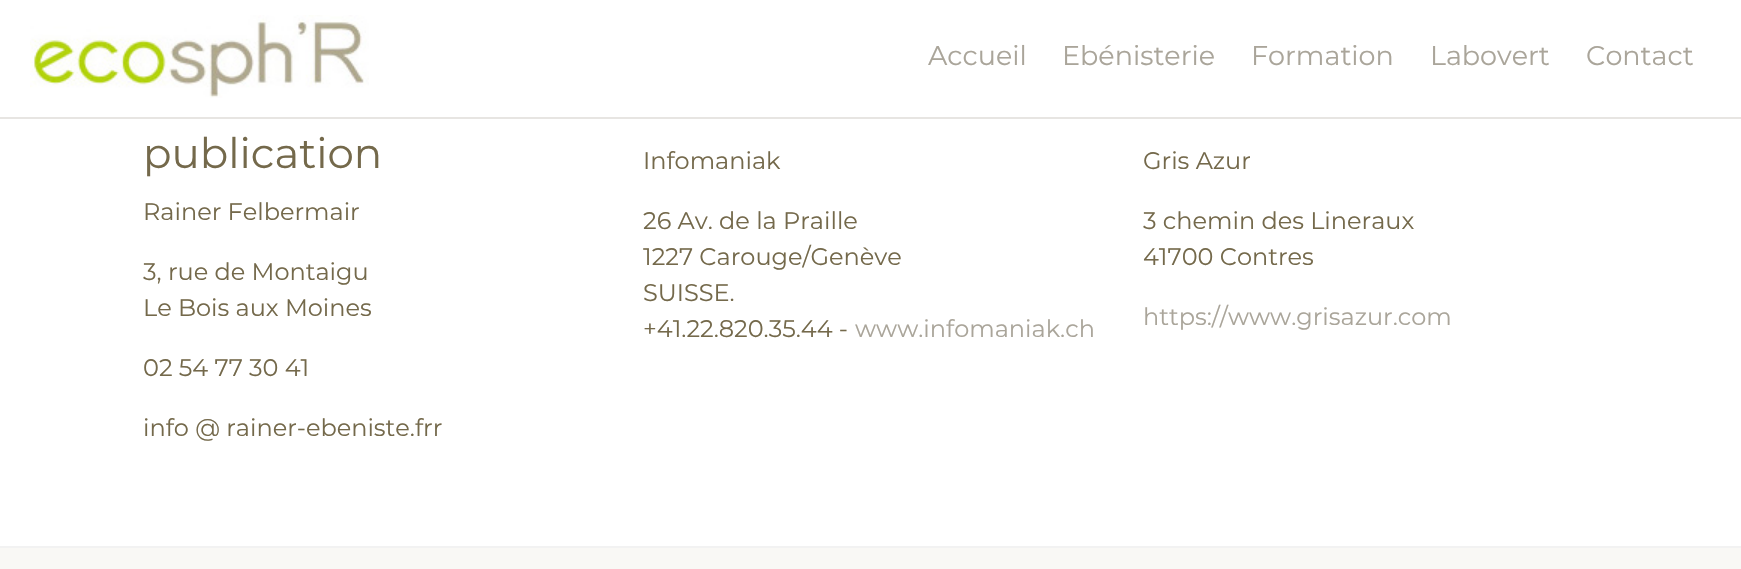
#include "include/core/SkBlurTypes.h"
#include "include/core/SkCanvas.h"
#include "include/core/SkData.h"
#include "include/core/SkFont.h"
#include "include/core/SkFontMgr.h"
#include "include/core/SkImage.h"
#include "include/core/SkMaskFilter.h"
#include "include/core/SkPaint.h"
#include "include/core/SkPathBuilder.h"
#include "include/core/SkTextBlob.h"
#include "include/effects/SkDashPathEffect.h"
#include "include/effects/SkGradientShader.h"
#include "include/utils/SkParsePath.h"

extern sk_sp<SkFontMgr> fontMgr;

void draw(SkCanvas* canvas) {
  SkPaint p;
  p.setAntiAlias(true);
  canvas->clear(SK_ColorWHITE);
  p.setColor(SkColorSetRGB(231, 229, 226));
  canvas->drawRect(SkRect::MakeLTRB(0, 117, 1741, 119), p);
  canvas->drawImageRect(SkImages::DeferredFromEncodedData(SkData::MakeFromFileName("images/1.png")), SkRect::MakeLTRB(30, 15, 369, 98), SkSamplingOptions());
  p.setColor(SkColorSetRGB(249, 248, 245));
  canvas->drawRect(SkRect::MakeLTRB(0, 548, 1741, 569), p);
  p.setColor(SkColorSetRGB(242, 242, 242));
  canvas->drawRect(SkRect::MakeLTRB(0, 546, 1741, 548), p);
  SkFont font1(fontMgr->matchFamilyStyle("Montserrat", SkFontStyle::Normal()), 27);
  font1.setSubpixel(true);
  p.setColor(SkColorSetRGB(170, 165, 154));
  canvas->drawString("Accueil", 928, 65, font1, p);
  canvas->drawString("Ebénisterie", 1062, 65, font1, p);
  canvas->drawString("Formation", 1251, 65, font1, p);
  canvas->drawString("Labovert", 1430, 65, font1, p);
  canvas->drawString("Contact", 1586, 65, font1, p);
  SkFont font2(fontMgr->matchFamilyStyle("Montserrat", SkFontStyle::Normal()), 42);
  font2.setSubpixel(true);
  p.setColor(SkColorSetRGB(116, 105, 75));
  canvas->drawString("publication", 143, 168, font2, p);
  SkFont font3(fontMgr->matchFamilyStyle("Montserrat", SkFontStyle::Normal()), 24);
  font3.setSubpixel(true);
  canvas->drawString("Rainer Felbermair", 143, 220, font3, p);
  canvas->drawString("3, rue de Montaigu", 143, 280, font3, p);
  canvas->drawString("Le Bois aux Moines", 143, 316, font3, p);
  canvas->drawString("02 54 77 30 41", 143, 376, font3, p);
  canvas->drawString("info @ rainer-ebeniste.frr", 143, 436, font3, p);
  canvas->drawString("Infomaniak", 643, 169, font3, p);
  canvas->drawString("26 Av. de la Praille", 643, 229, font3, p);
  canvas->drawString("1227 Carouge/Genève", 643, 265, font3, p);
  canvas->drawString("SUISSE.", 643, 301, font3, p);
  canvas->drawString("+41.22.820.35.44 -", 643, 337, font3, p);
  p.setColor(SkColorSetRGB(170, 165, 154));
  canvas->drawString("www.infomaniak.ch", 855, 337, font3, p);
  p.setColor(SkColorSetRGB(116, 105, 75));
  canvas->drawString("Gris Azur", 1143, 169, font3, p);
  canvas->drawString("3 chemin des Lineraux", 1143, 229, font3, p);
  canvas->drawString("41700 Contres", 1143, 265, font3, p);
  p.setColor(SkColorSetRGB(170, 165, 154));
  canvas->drawString("https://www.grisazur.com", 1143, 325, font3, p);
}
